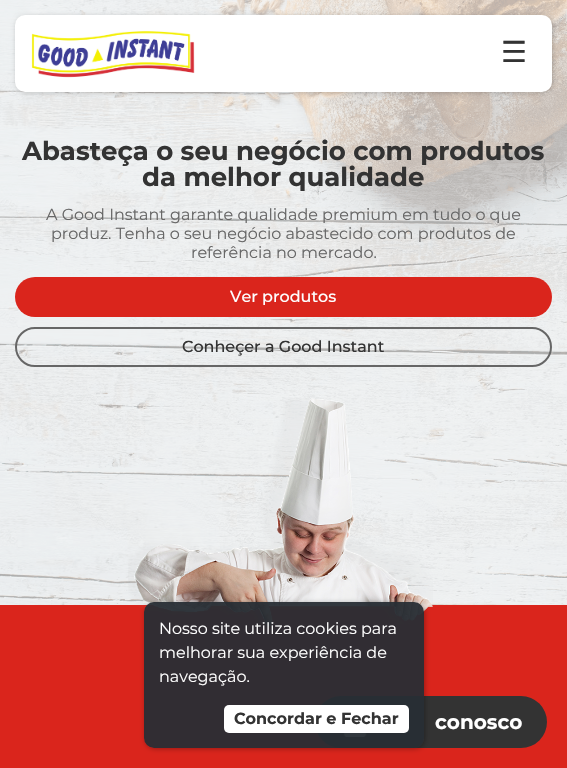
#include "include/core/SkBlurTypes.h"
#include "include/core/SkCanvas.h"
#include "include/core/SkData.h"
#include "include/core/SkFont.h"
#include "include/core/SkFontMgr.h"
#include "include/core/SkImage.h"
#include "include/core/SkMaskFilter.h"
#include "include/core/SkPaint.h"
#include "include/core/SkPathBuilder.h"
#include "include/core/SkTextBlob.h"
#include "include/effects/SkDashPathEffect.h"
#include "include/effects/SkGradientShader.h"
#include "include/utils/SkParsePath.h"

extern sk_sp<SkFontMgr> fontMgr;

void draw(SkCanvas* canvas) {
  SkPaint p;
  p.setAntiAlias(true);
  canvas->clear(SK_ColorWHITE);
  canvas->drawImageRect(SkImages::DeferredFromEncodedData(SkData::MakeFromFileName("images/1.png")), SkRect::MakeLTRB(0, 0, 567, 605), SkSamplingOptions());
  p.setColor(SkColorSetARGB(51, 0, 0, 0));
  p.setMaskFilter(SkMaskFilter::MakeBlur(kNormal_SkBlurStyle, 2.5f));
  canvas->drawRoundRect(SkRect::MakeLTRB(16, 16, 553, 93), 10, 10, p);
  p.setMaskFilter(nullptr);
  p.setColor(SK_ColorWHITE);
  canvas->drawRoundRect(SkRect::MakeLTRB(15, 15, 552, 92), 10, 10, p);
  canvas->drawImageRect(SkImages::DeferredFromEncodedData(SkData::MakeFromFileName("images/2.png")), SkRect::MakeLTRB(31, 31, 195, 78), SkSamplingOptions());
  p.setColor(SkColorSetRGB(218, 37, 28));
  canvas->drawRoundRect(SkRect::MakeLTRB(15, 277, 552, 317), 20, 20, p);
  p.setStyle(SkPaint::kStroke_Style);
  p.setStrokeWidth(2);
  p.setColor(SkColorSetRGB(102, 102, 102));
  canvas->drawRoundRect(SkRect::MakeLTRB(16, 328, 551, 366), 19, 19, p);
  p.setStyle(SkPaint::kFill_Style);
  p.setColor(SkColorSetRGB(218, 37, 28));
  canvas->drawRect(SkRect::MakeLTRB(0, 605, 567, 768), p);
  canvas->drawImageRect(SkImages::DeferredFromEncodedData(SkData::MakeFromFileName("images/3.png")), SkRect::MakeLTRB(128, 398, 433, 627), SkSamplingOptions());
  p.setColor(SkColorSetRGB(51, 51, 51));
  canvas->drawRoundRect(SkRect::MakeLTRB(315, 696, 547, 748), 26, 26, p);
  canvas->drawImageRect(SkImages::DeferredFromEncodedData(SkData::MakeFromFileName("images/4.png")), SkRect::MakeLTRB(343, 733, 367, 737), SkSamplingOptions());
  canvas->save();
  canvas->clipPath(SkPathBuilder(SkPathFillType::kEvenOdd).moveTo(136, 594).lineTo(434, 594).lineTo(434, 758).lineTo(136, 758).close().moveTo(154, 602).lineTo(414, 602).cubicTo(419.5f, 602, 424, 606.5f, 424, 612).lineTo(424, 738).cubicTo(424, 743.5f, 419.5f, 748, 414, 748).lineTo(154, 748).cubicTo(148.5f, 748, 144, 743.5f, 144, 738).lineTo(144, 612).cubicTo(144, 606.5f, 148.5f, 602, 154, 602).close().detach(), true);
  p.setColor(SkColorSetARGB(77, 0, 0, 0));
  p.setMaskFilter(SkMaskFilter::MakeBlur(kNormal_SkBlurStyle, 2.5f));
  canvas->drawRoundRect(SkRect::MakeLTRB(145, 603, 425, 749), 10, 10, p);
  p.setMaskFilter(nullptr);
  canvas->restore();
  p.setColor(SkColorSetARGB(242, 39, 45, 52));
  canvas->drawRoundRect(SkRect::MakeLTRB(144, 602, 424, 748), 10, 10, p);
  p.setColor(SK_ColorWHITE);
  canvas->drawRoundRect(SkRect::MakeLTRB(224, 705, 409, 733), 5, 5, p);
  SkFont font1(fontMgr->matchFamilyStyle("DejaVu Sans", SkFontStyle::Normal()), 29);
  font1.setSubpixel(true);
  p.setColor(SkColorSetRGB(51, 51, 51));
  canvas->drawString("☰", 501, 62, font1, p);
  SkFont font2(fontMgr->matchFamilyStyle("Montserrat", SkFontStyle::Bold()), 26);
  font2.setSubpixel(true);
  canvas->drawString("Abasteça o seu negócio com produtos", 22, 160, font2, p);
  canvas->drawString("da melhor qualidade", 142, 186, font2, p);
  SkFont font3(fontMgr->matchFamilyStyle("Montserrat", SkFontStyle::Normal()), 16);
  font3.setSubpixel(true);
  p.setColor(SkColorSetRGB(102, 102, 102));
  canvas->drawString("A Good Instant garante qualidade premium em tudo o que", 46, 220, font3, p);
  canvas->drawString("produz. Tenha o seu negócio abastecido com produtos de", 51, 239, font3, p);
  canvas->drawString("referência no mercado.", 191, 258, font3, p);
  SkFont font4(fontMgr->matchFamilyStyle("Montserrat", SkFontStyle(500, SkFontStyle::kNormal_Width, SkFontStyle::kUpright_Slant)), 16);
  font4.setSubpixel(true);
  p.setColor(SK_ColorWHITE);
  canvas->drawString("Ver produtos", 230, 302, font4, p);
  p.setColor(SkColorSetRGB(51, 51, 51));
  canvas->drawString("Conheçer a Good Instant", 182, 352, font4, p);
  p.setColor(SK_ColorWHITE);
  canvas->drawString("Nosso site utiliza cookies para", 159, 634, font3, p);
  canvas->drawString("melhorar sua experiência de", 159, 658, font3, p);
  canvas->drawString("navegação.", 159, 682, font3, p);
  SkFont font5(fontMgr->matchFamilyStyle("Montserrat", SkFontStyle::Bold()), 16);
  font5.setSubpixel(true);
  p.setColor(SkColorSetRGB(51, 51, 51));
  canvas->drawString("Concordar e Fechar", 234, 724, font5, p);
  SkFont font6(fontMgr->matchFamilyStyle("Montserrat", SkFontStyle::Bold()), 20);
  font6.setSubpixel(true);
  p.setColor(SK_ColorWHITE);
  canvas->drawString("conosco", 435, 729, font6, p);
}
